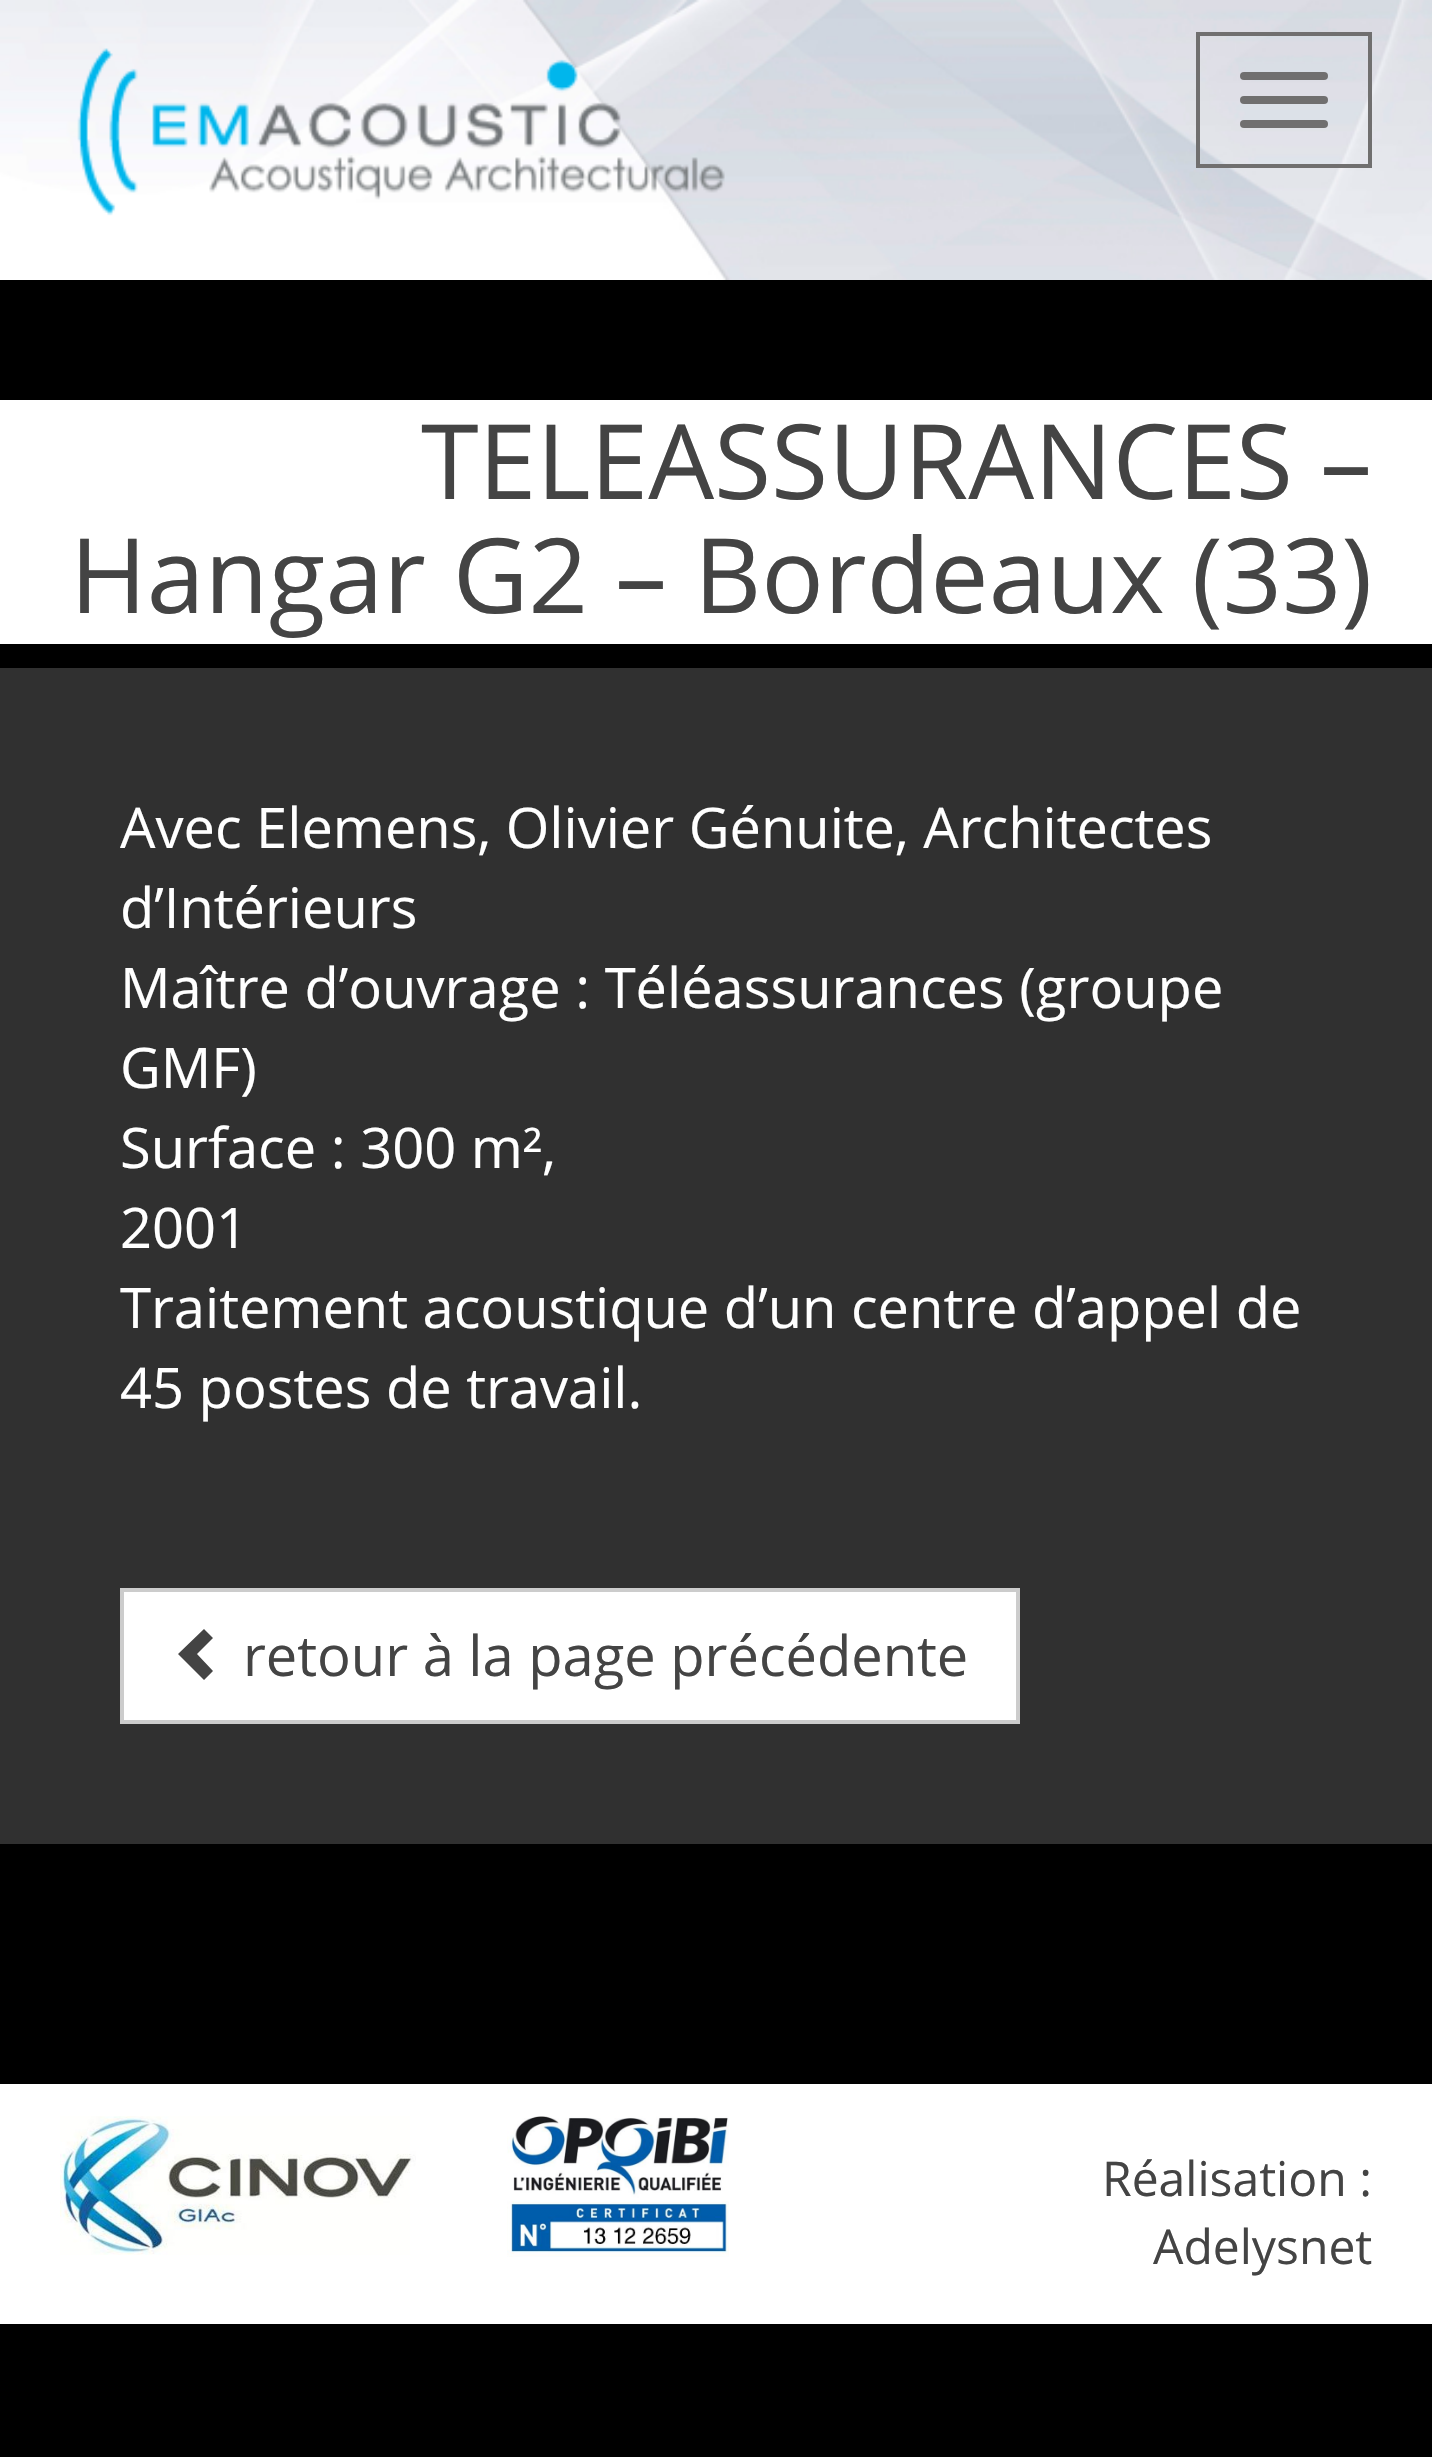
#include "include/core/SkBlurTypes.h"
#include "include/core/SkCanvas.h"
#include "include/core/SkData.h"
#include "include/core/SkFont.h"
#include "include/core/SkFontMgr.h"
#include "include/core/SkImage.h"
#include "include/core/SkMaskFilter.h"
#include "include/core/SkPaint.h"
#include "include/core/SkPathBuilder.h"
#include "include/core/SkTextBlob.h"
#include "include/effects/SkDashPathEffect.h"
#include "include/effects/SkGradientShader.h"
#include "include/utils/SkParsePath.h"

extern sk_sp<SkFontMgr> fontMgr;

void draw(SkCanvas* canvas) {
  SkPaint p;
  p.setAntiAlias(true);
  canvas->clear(SK_ColorBLACK);
  canvas->drawImageRect(SkImages::DeferredFromEncodedData(SkData::MakeFromFileName("images/1.png")), SkRect::MakeLTRB(0, 0, 1432, 280), SkSamplingOptions());
  canvas->drawImageRect(SkImages::DeferredFromEncodedData(SkData::MakeFromFileName("images/2.png")), SkRect::MakeLTRB(77, 48, 725, 216), SkSamplingOptions());
  p.setStyle(SkPaint::kStroke_Style);
  p.setStrokeWidth(4);
  p.setColor(SkColorSetRGB(112, 111, 111));
  canvas->drawRect(SkRect::MakeLTRB(1198, 34, 1370, 166), p);
  p.setStyle(SkPaint::kFill_Style);
  canvas->drawRoundRect(SkRect::MakeLTRB(1240, 72, 1328, 80), 4, 4, p);
  canvas->drawRoundRect(SkRect::MakeLTRB(1240, 96, 1328, 104), 4, 4, p);
  canvas->drawRoundRect(SkRect::MakeLTRB(1240, 120, 1328, 128), 4, 4, p);
  p.setColor(SK_ColorWHITE);
  canvas->drawRect(SkRect::MakeLTRB(0, 400, 1432, 644), p);
  p.setColor(SkColorSetRGB(48, 48, 48));
  canvas->drawRect(SkRect::MakeLTRB(0, 668, 1432, 1844), p);
  p.setColor(SK_ColorWHITE);
  canvas->drawRect(SkRect::MakeLTRB(122, 1590, 1018, 1722), p);
  p.setStyle(SkPaint::kStroke_Style);
  p.setColor(SkColorSetRGB(204, 204, 204));
  canvas->drawRect(SkRect::MakeLTRB(122, 1590, 1018, 1722), p);
  p.setStyle(SkPaint::kFill_Style);
  p.setColor(SkColorSetRGB(68, 68, 68));
  canvas->drawPath(SkPathBuilder().moveTo(213, 1638).lineTo(197, 1654).lineTo(213, 1671).lineTo(204, 1680).lineTo(178, 1654).lineTo(204, 1629).close().detach(), p);
  p.setColor(SK_ColorWHITE);
  canvas->drawRect(SkRect::MakeLTRB(0, 2084, 1432, 2324), p);
  canvas->drawImageRect(SkImages::DeferredFromEncodedData(SkData::MakeFromFileName("images/3.png")), SkRect::MakeLTRB(60, 2116, 416, 2255), SkSamplingOptions());
  canvas->drawImageRect(SkImages::DeferredFromEncodedData(SkData::MakeFromFileName("images/4.png")), SkRect::MakeLTRB(507, 2116, 729, 2257), SkSamplingOptions());
  SkFont font1(fontMgr->matchFamilyStyle("Open Sans", SkFontStyle::Normal()), 104);
  font1.setSubpixel(true);
  p.setColor(SkColorSetRGB(68, 68, 68));
  canvas->drawString("TELEASSURANCES –", 421, 499, font1, p);
  canvas->drawString("Hangar G2 – Bordeaux (33)", 70, 613, font1, p);
  SkFont font2(fontMgr->matchFamilyStyle("Open Sans", SkFontStyle::Normal()), 56);
  font2.setSubpixel(true);
  p.setColor(SK_ColorWHITE);
  canvas->drawString("Avec Elemens, Olivier Génuite, Architectes", 120, 848, font2, p);
  canvas->drawString("d’Intérieurs", 120, 928, font2, p);
  canvas->drawString("Maître d’ouvrage : Téléassurances (groupe", 120, 1008, font2, p);
  canvas->drawString("GMF)", 120, 1088, font2, p);
  canvas->drawString("Surface : 300 m²,", 120, 1168, font2, p);
  canvas->drawString("2001", 120, 1248, font2, p);
  canvas->drawString("Traitement acoustique d’un centre d’appel de", 120, 1328, font2, p);
  canvas->drawString("45 postes de travail.", 120, 1408, font2, p);
  p.setColor(SkColorSetRGB(68, 68, 68));
  canvas->drawString("retour à la page précédente", 243, 1676, font2, p);
  SkFont font3(fontMgr->matchFamilyStyle("Open Sans", SkFontStyle::Normal()), 48);
  font3.setSubpixel(true);
  canvas->drawString("Réalisation :", 1102, 2196, font3, p);
  canvas->drawString("Adelysnet", 1153, 2264, font3, p);
}
